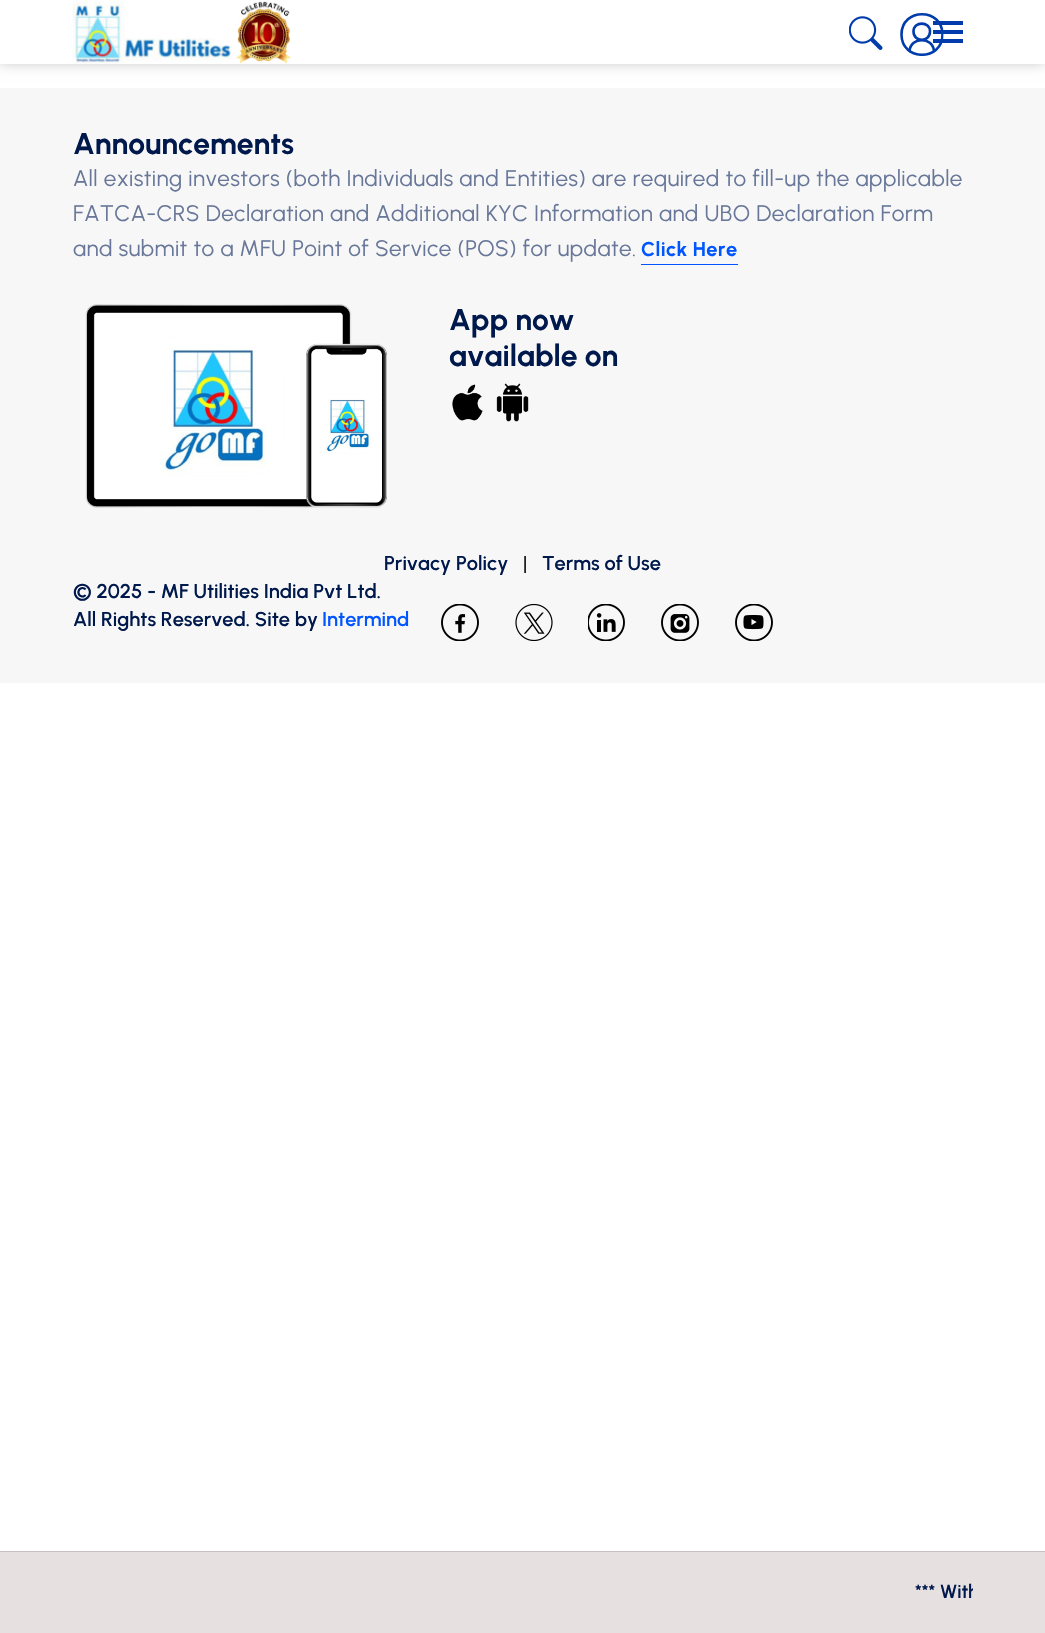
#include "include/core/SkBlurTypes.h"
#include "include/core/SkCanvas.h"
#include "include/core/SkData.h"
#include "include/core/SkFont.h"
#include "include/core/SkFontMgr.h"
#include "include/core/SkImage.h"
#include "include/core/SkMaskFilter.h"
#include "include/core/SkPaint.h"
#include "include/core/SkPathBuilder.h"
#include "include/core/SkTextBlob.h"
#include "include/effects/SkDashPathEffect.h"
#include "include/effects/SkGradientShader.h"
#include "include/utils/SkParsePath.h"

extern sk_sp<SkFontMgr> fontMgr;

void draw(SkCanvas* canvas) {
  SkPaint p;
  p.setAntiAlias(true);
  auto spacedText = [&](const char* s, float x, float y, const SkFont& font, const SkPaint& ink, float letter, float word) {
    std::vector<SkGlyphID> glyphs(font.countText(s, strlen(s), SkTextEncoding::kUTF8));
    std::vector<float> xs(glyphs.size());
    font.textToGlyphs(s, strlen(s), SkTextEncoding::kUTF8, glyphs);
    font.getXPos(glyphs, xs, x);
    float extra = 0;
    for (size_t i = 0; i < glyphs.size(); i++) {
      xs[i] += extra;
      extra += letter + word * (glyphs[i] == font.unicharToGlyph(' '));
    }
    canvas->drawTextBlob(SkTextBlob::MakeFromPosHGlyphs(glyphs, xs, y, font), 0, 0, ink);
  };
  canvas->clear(SK_ColorWHITE);
  p.setColor(SkColorSetARGB(51, 0, 0, 0));
  p.setMaskFilter(SkMaskFilter::MakeBlur(kNormal_SkBlurStyle, 6));
  canvas->drawRect(SkRect::MakeLTRB(0, 0, 1045, 64), p);
  p.setMaskFilter(nullptr);
  p.setColor(SK_ColorWHITE);
  canvas->drawRect(SkRect::MakeLTRB(0, 0, 1045, 64), p);
  canvas->drawImageRect(SkImages::DeferredFromEncodedData(SkData::MakeFromFileName("images/1.png")), SkRect::MakeLTRB(72, 0, 291, 64), SkSamplingOptions());
  canvas->drawImageRect(SkImages::DeferredFromEncodedData(SkData::MakeFromFileName("images/2.png")), SkRect::MakeLTRB(849, 16, 883, 50), SkSamplingOptions());
  canvas->save();
  canvas->clipPath(SkPathBuilder().moveTo(900, 12.5f).lineTo(943.5f, 12.5f).lineTo(943.5f, 56).lineTo(900, 56).close().detach(), true);
  p.setStyle(SkPaint::kStroke_Style);
  p.setStrokeWidth(2.6f);
  p.setStrokeCap(SkPaint::kRound_Cap);
  p.setStrokeJoin(SkPaint::kRound_Join);
  p.setColor(SkColorSetRGB(0, 60, 171));
  canvas->drawPath(SkPathBuilder().moveTo(942.5f, 34.5f).cubicTo(942.5f, 61.5f, 901.5f, 61.5f, 901.5f, 34.5f).cubicTo(901.5f, 7.5f, 942.5f, 7.5f, 942.5f, 34.5f).close().detach(), p);
  canvas->restore();
  canvas->drawPath(SkPathBuilder().moveTo(930, 31.5f).cubicTo(930, 42.5f, 913.5f, 42.5f, 913.5f, 31.5f).cubicTo(913.5f, 21, 930, 21, 930, 31.5f).close().moveTo(909.5f, 51).cubicTo(911, 36.5f, 932.5f, 36.5f, 934, 51).detach(), p);
  p.setStyle(SkPaint::kFill_Style);
  canvas->drawRect(SkRect::MakeLTRB(933, 30, 963, 34), p);
  canvas->drawRect(SkRect::MakeLTRB(933, 21, 963, 25), p);
  canvas->drawRect(SkRect::MakeLTRB(933, 39, 963, 43), p);
  p.setColor(SkColorSetRGB(247, 247, 247));
  canvas->drawRect(SkRect::MakeLTRB(0, 88, 1045, 683), p);
  p.setColor(SkColorSetRGB(0, 85, 255));
  canvas->drawRect(SkRect::MakeLTRB(641, 264, 738, 265), p);
  canvas->drawImageRect(SkImages::DeferredFromEncodedData(SkData::MakeFromFileName("images/3.png")), SkRect::MakeLTRB(85, 304, 387, 508), SkSamplingOptions());
  canvas->drawImageRect(SkImages::DeferredFromEncodedData(SkData::MakeFromFileName("images/4.png")), SkRect::MakeLTRB(452, 384, 483, 421), SkSamplingOptions());
  canvas->drawImageRect(SkImages::DeferredFromEncodedData(SkData::MakeFromFileName("images/5.png")), SkRect::MakeLTRB(496, 383, 529, 422), SkSamplingOptions());
  canvas->drawImageRect(SkImages::DeferredFromEncodedData(SkData::MakeFromFileName("images/6.png")), SkRect::MakeLTRB(441, 604, 479, 641), SkSamplingOptions());
  canvas->drawImageRect(SkImages::DeferredFromEncodedData(SkData::MakeFromFileName("images/7.png")), SkRect::MakeLTRB(515, 604, 553, 641), SkSamplingOptions());
  canvas->drawImageRect(SkImages::DeferredFromEncodedData(SkData::MakeFromFileName("images/8.png")), SkRect::MakeLTRB(588, 604, 625, 641), SkSamplingOptions());
  canvas->drawImageRect(SkImages::DeferredFromEncodedData(SkData::MakeFromFileName("images/9.png")), SkRect::MakeLTRB(661, 604, 699, 641), SkSamplingOptions());
  canvas->drawImageRect(SkImages::DeferredFromEncodedData(SkData::MakeFromFileName("images/10.png")), SkRect::MakeLTRB(735, 604, 773, 641), SkSamplingOptions());
  p.setColor(SkColorSetRGB(230, 224, 224));
  canvas->drawRect(SkRect::MakeLTRB(0, 1552, 1045, 1633), p);
  p.setColor(SkColorSetRGB(202, 190, 190));
  canvas->drawRect(SkRect::MakeLTRB(0, 1551, 1045, 1552), p);
  SkFont font1(fontMgr->matchFamilyStyle("Urbanist", SkFontStyle::Bold()), 30);
  font1.setSubpixel(true);
  p.setColor(SkColorSetRGB(0, 25, 76));
  canvas->drawString("Announcements", 73, 154, font1, p);
  SkFont font2(fontMgr->matchFamilyStyle("Urbanist", SkFontStyle::Normal()), 22.5f);
  font2.setSubpixel(true);
  p.setColor(SkColorSetRGB(104, 119, 153));
  spacedText("All existing investors (both Individuals and Entities) are required to fill-up the applicable", 73, 186, font2, p, 0.38f, 0);
  spacedText("FATCA-CRS Declaration and Additional KYC Information and UBO Declaration Form", 73, 221, font2, p, 0.38f, 0);
  spacedText("and submit to a MFU Point of Service (POS) for update.", 73, 256, font2, p, 0.38f, 0);
  SkFont font3(fontMgr->matchFamilyStyle("Urbanist", SkFontStyle::Bold()), 20);
  font3.setSubpixel(true);
  p.setColor(SkColorSetRGB(0, 85, 255));
  spacedText("Click Here", 641, 256, font3, p, 0.38f, 0);
  p.setColor(SkColorSetRGB(0, 25, 76));
  canvas->drawString("App now", 449, 330, font1, p);
  canvas->drawString("available on", 449, 366, font1, p);
  SkFont font4(fontMgr->matchFamilyStyle("Urbanist", SkFontStyle(600, SkFontStyle::kNormal_Width, SkFontStyle::kUpright_Slant)), 20);
  font4.setSubpixel(true);
  canvas->drawString("Privacy Policy", 384, 570, font4, p);
  SkFont font5(fontMgr->matchFamilyStyle("Urbanist", SkFontStyle::Normal()), 20);
  font5.setSubpixel(true);
  p.setColor(SK_ColorBLACK);
  canvas->drawString("|", 523, 570, font5, p);
  p.setColor(SkColorSetRGB(0, 25, 76));
  canvas->drawString("Terms of Use", 542, 570, font4, p);
  canvas->drawString("© 2025 - MF Utilities India Pvt Ltd.", 73, 598, font4, p);
  canvas->drawString("All Rights Reserved. Site by", 73, 626, font4, p);
  p.setColor(SkColorSetRGB(0, 85, 255));
  canvas->drawString("Intermind", 322, 626, font4, p);
  canvas->save();
  canvas->clipRect(SkRect::MakeLTRB(73, 1576, 973, 1606));
  SkFont font6(fontMgr->matchFamilyStyle("Urbanist", SkFontStyle(600, SkFontStyle::kNormal_Width, SkFontStyle::kUpright_Slant)), 19);
  font6.setSubpixel(true);
  p.setColor(SkColorSetRGB(0, 25, 76));
  canvas->drawString("*** With", 915, 1598, font6, p);
  canvas->restore();
}
